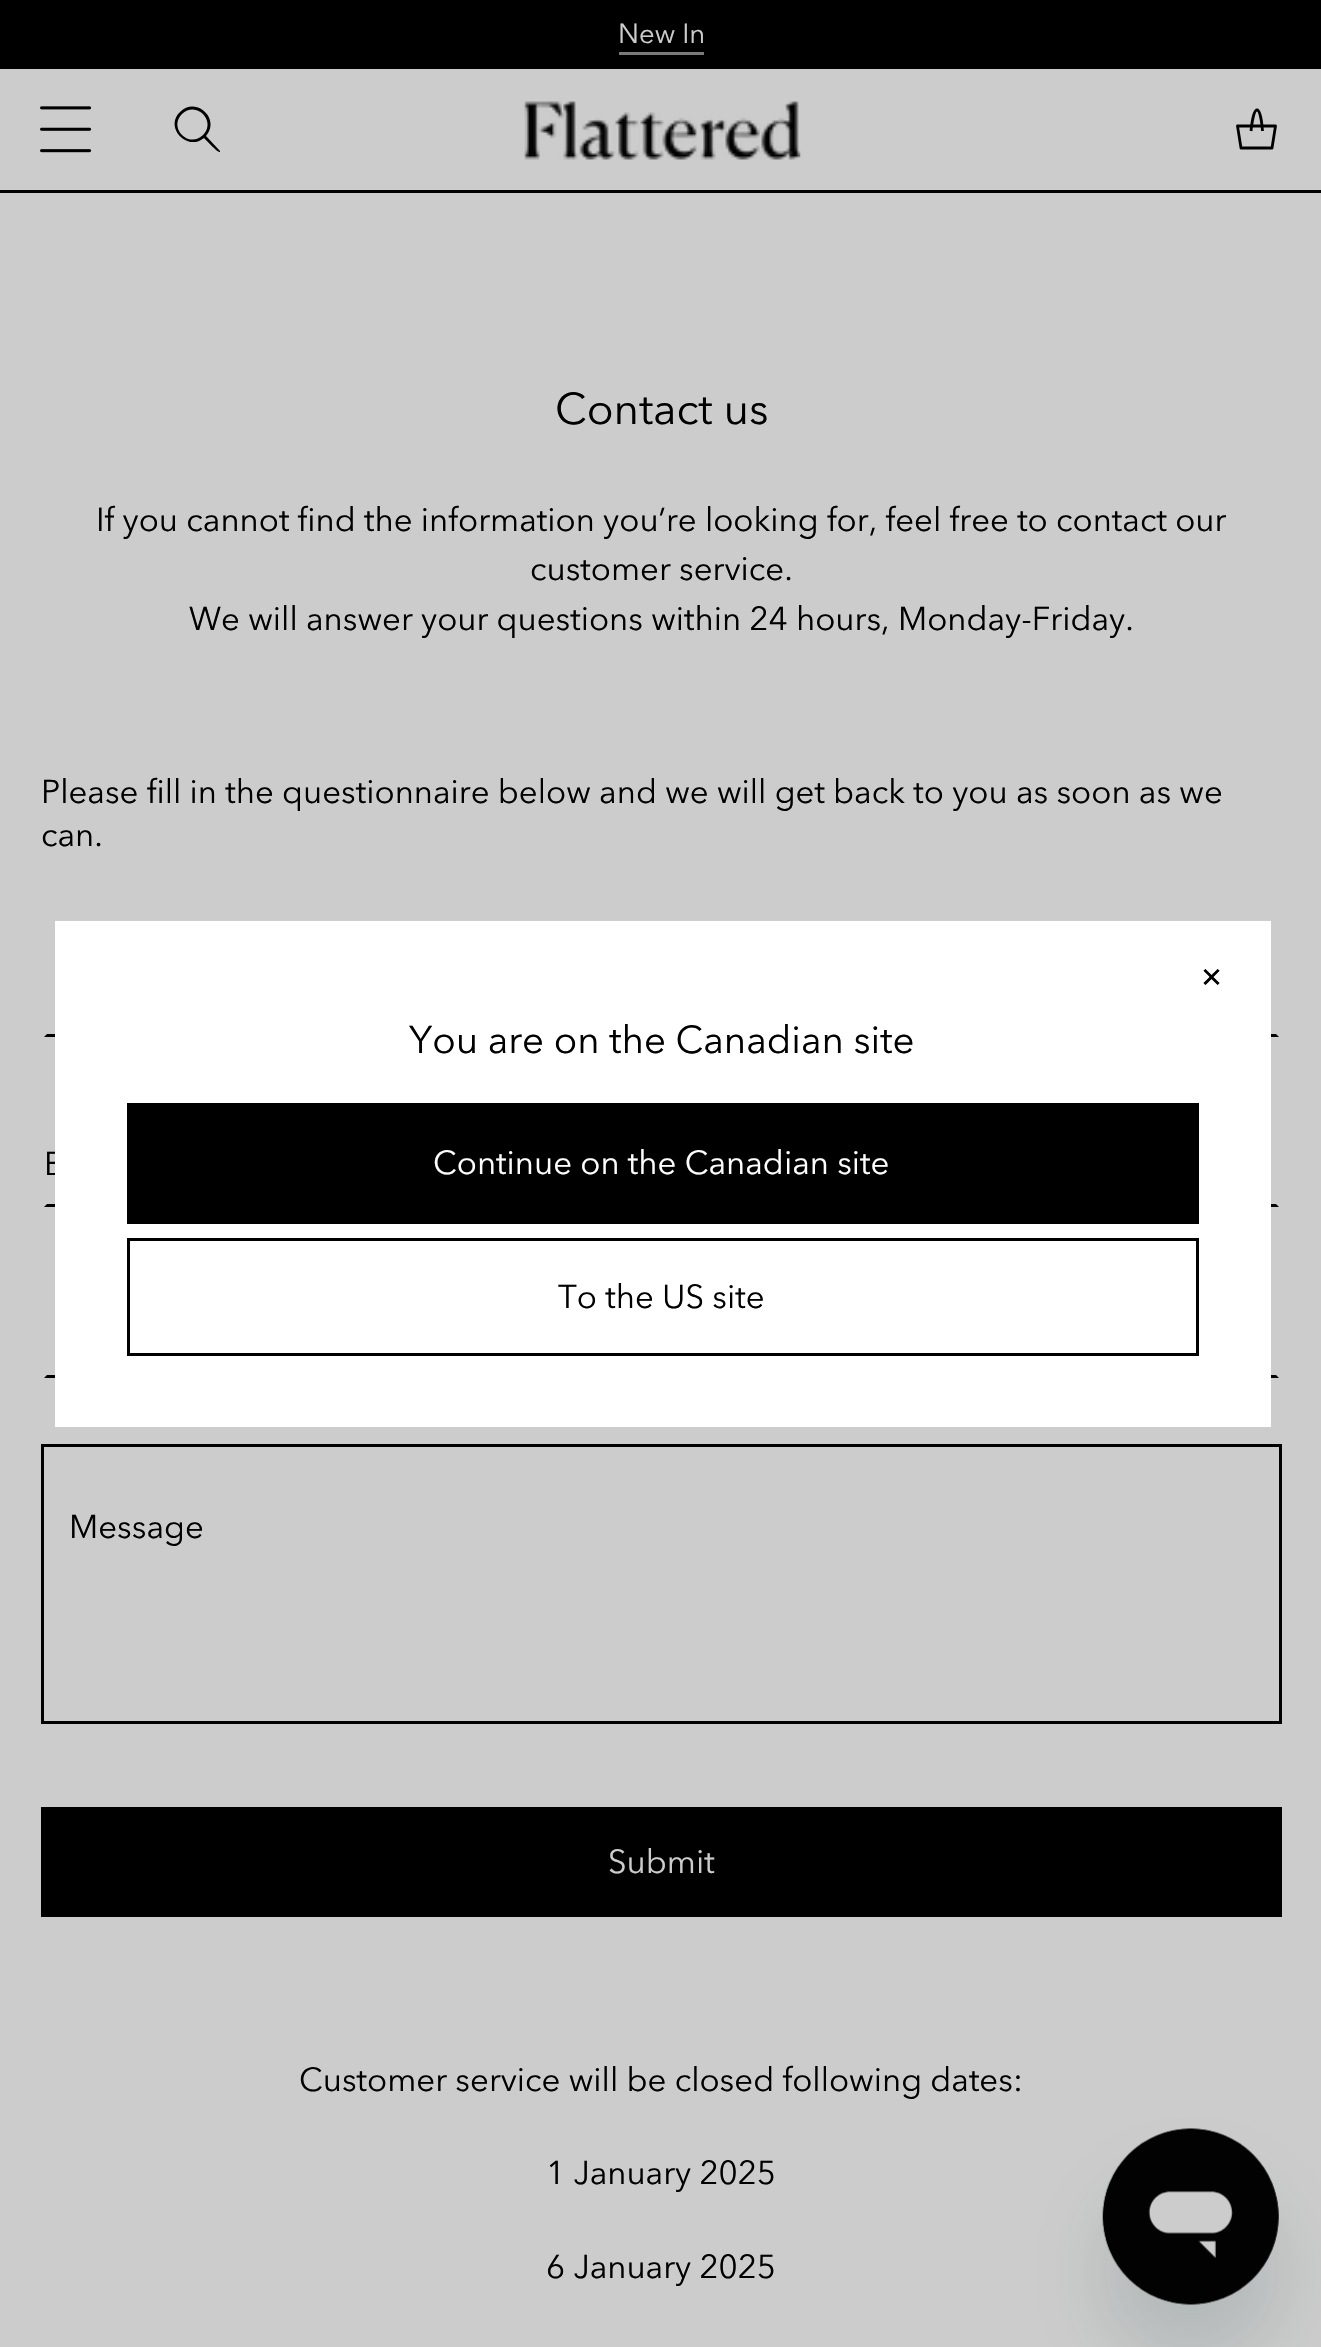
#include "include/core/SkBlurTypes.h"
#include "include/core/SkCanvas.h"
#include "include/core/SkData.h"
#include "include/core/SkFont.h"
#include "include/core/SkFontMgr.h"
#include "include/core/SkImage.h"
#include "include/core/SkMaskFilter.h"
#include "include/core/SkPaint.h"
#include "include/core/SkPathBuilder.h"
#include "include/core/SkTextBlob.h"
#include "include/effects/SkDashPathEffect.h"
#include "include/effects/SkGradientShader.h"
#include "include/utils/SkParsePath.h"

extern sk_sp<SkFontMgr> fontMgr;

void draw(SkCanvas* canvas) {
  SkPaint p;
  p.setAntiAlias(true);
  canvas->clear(SkColorSetRGB(204, 204, 204));
  p.setColor(SK_ColorBLACK);
  canvas->drawRect(SkRect::MakeLTRB(0, 0, 1321, 69), p);
  canvas->drawRect(SkRect::MakeLTRB(0, 190, 1321, 193), p);
  canvas->drawImageRect(SkImages::DeferredFromEncodedData(SkData::MakeFromFileName("images/1.png")), SkRect::MakeLTRB(40, 106, 92, 153), SkSamplingOptions());
  canvas->drawPath(SkPathBuilder(SkPathFillType::kEvenOdd).moveTo(203, 135).cubicTo(189, 149, 168, 128, 182, 114).cubicTo(196, 100, 217, 121, 203, 135).close().moveTo(204, 138).cubicTo(187, 152, 164, 127, 180, 112).cubicTo(196, 96, 221, 119, 206, 136).lineTo(220, 151).lineTo(220, 152).cubicTo(218, 153, 206, 140, 204, 138).close().detach(), p);
  canvas->drawImageRect(SkImages::DeferredFromEncodedData(SkData::MakeFromFileName("images/2.png")), SkRect::MakeLTRB(524, 101, 801, 160), SkSamplingOptions());
  p.setStyle(SkPaint::kStroke_Style);
  p.setStrokeWidth(2.8f);
  p.setStrokeCap(SkPaint::kRound_Cap);
  p.setStrokeJoin(SkPaint::kRound_Join);
  canvas->drawPath(SkPathBuilder().moveTo(1237.5f, 126).lineTo(1241, 148).lineTo(1272, 148).lineTo(1275.5f, 126).close().detach(), p);
  p.setStrokeCap(SkPaint::kButt_Cap);
  canvas->drawPath(SkPathBuilder().moveTo(1251, 131).cubicTo(1251, 131, 1253, 110, 1257, 110).cubicTo(1261, 110, 1262.5f, 131, 1262.5f, 131).detach(), p);
  p.setStyle(SkPaint::kFill_Style);
  p.setColor(SkColorSetRGB(122, 122, 122));
  canvas->drawRect(SkRect::MakeLTRB(619, 52, 704, 55), p);
  p.setColor(SK_ColorBLACK);
  canvas->drawPath(SkPathBuilder().moveTo(1279, 1037).lineTo(44, 1037).lineTo(47, 1034).lineTo(1276, 1034).close().detach(), p);
  canvas->drawPath(SkPathBuilder().moveTo(1279, 1207).lineTo(44, 1207).lineTo(47, 1204).lineTo(1276, 1204).close().detach(), p);
  canvas->drawPath(SkPathBuilder().moveTo(1279, 1378).lineTo(44, 1378).lineTo(47, 1375).lineTo(1276, 1375).close().detach(), p);
  p.setStyle(SkPaint::kStroke_Style);
  p.setStrokeWidth(3);
  p.setStrokeJoin(SkPaint::kMiter_Join);
  canvas->drawRect(SkRect::MakeLTRB(42.5f, 1445.5f, 1280.5f, 1722.5f), p);
  p.setStyle(SkPaint::kFill_Style);
  canvas->drawRect(SkRect::MakeLTRB(41, 1807, 1282, 1917), p);
  p.setColor(SkColorSetARGB(38, 18, 58, 62));
  p.setMaskFilter(SkMaskFilter::MakeBlur(kNormal_SkBlurStyle, 41));
  canvas->drawRoundRect(SkRect::MakeLTRB(1103, 2184, 1279, 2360), 88, 88, p);
  p.setMaskFilter(nullptr);
  canvas->drawImageRect(SkImages::DeferredFromEncodedData(SkData::MakeFromFileName("images/3.png")), SkRect::MakeLTRB(1102, 2128, 1279, 2305), SkSamplingOptions());
  SkFont font1(fontMgr->matchFamilyStyle("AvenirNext", SkFontStyle::Normal()), 27.5f);
  font1.setSubpixel(true);
  p.setColor(SkColorSetRGB(204, 204, 204));
  canvas->drawString("New In", 618, 43, font1, p);
  SkFont font2(fontMgr->matchFamilyStyle("AvenirNext", SkFontStyle::Normal()), 44);
  font2.setSubpixel(true);
  p.setColor(SK_ColorBLACK);
  canvas->drawString("Contact us", 555, 424, font2, p);
  SkFont font3(fontMgr->matchFamilyStyle("AvenirNext", SkFontStyle::Normal()), 33);
  font3.setSubpixel(true);
  canvas->drawString("If you cannot find the information you’re looking for, feel free to contact our", 96, 531, font3, p);
  canvas->drawString("customer service.", 530, 580, font3, p);
  canvas->drawString("We will answer your questions within 24 hours, Monday-Friday.", 189, 630, font3, p);
  canvas->drawString("Please fill in the questionnaire below and we will get back to you as soon as we", 41, 803, font3, p);
  canvas->drawString("can.", 41, 846, font3, p);
  canvas->drawString("E", 44, 1175, font3, p);
  canvas->drawString("Message", 69, 1538, font3, p);
  p.setColor(SkColorSetRGB(204, 204, 204));
  canvas->drawString("Submit", 608, 1873, font3, p);
  p.setColor(SK_ColorBLACK);
  canvas->drawString("Customer service will be closed following dates:", 299, 2091, font3, p);
  canvas->drawString("1 January 2025", 546, 2184, font3, p);
  canvas->drawString("6 January 2025", 546, 2278, font3, p);
  p.setColor(SK_ColorWHITE);
  canvas->drawRect(SkRect::MakeLTRB(55, 921, 1271, 1427), p);
  SkFont font4(fontMgr->matchFamilyStyle("DejaVu Sans", SkFontStyle::Normal()), 27.5f);
  font4.setSubpixel(true);
  p.setColor(SK_ColorBLACK);
  canvas->drawString("✕", 1200, 987, font4, p);
  SkFont font5(fontMgr->matchFamilyStyle("AvenirNext", SkFontStyle::Normal()), 38.5f);
  font5.setSubpixel(true);
  canvas->drawString("You are on the Canadian site", 409, 1053, font5, p);
  canvas->drawRect(SkRect::MakeLTRB(127, 1103, 1199, 1224), p);
  p.setColor(SK_ColorWHITE);
  canvas->drawString("Continue on the Canadian site", 433, 1174, font3, p);
  p.setStyle(SkPaint::kStroke_Style);
  p.setColor(SK_ColorBLACK);
  canvas->drawRect(SkRect::MakeLTRB(128.5f, 1239.5f, 1197.5f, 1354.5f), p);
  p.setStyle(SkPaint::kFill_Style);
  canvas->drawString("To the US site", 558, 1308, font3, p);
}
